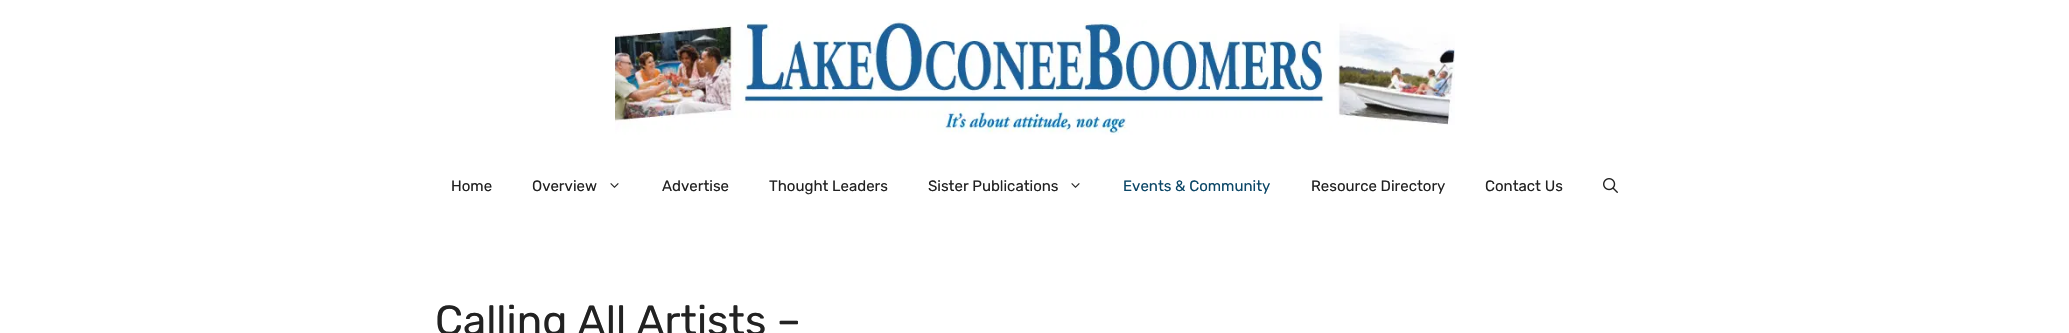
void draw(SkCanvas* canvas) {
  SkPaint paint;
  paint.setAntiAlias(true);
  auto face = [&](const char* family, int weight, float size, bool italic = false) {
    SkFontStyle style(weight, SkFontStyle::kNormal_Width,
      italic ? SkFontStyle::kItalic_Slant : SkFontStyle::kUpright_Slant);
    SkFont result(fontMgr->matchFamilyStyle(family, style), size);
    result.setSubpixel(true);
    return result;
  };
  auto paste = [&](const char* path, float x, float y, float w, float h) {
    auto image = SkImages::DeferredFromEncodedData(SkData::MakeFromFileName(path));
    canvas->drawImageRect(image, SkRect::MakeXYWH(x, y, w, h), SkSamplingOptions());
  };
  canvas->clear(0xffffffff);
  paste("img/1.png", 615, 20, 840, 115);
  paste("img/2.png", 610, 183, 9, 5);
  paste("img/2.png", 1071, 183, 9, 5);
  paste("img/3.png", 1603, 178, 15, 15);
  auto f0 = face("Rubik", 300, 15);
  paint.setColor(0xff222222);
  {
    const struct { const char* s; float x, y; } items[] = {
      {"Home", 451, 191},
      {"Overview", 532, 191},
      {"Advertise", 662, 191},
      {"Thought Leaders", 769, 191},
      {"Sister Publications", 928, 191},
    };
    for (auto [s, x, y] : items) {
      canvas->drawString(s, x, y, f0, paint);
    }
  }
  paint.setColor(0xff0c4767);
  canvas->drawString("Events & Community", 1123, 191, f0, paint);
  paint.setColor(0xff222222);
  canvas->drawString("Resource Directory", 1311, 191, f0, paint);
  canvas->drawString("Contact Us", 1485, 191, f0, paint);
  auto f1 = face("Rubik", 300, 42);
  canvas->drawString("Calling All Artists –", 435, 335, f1, paint);
}
